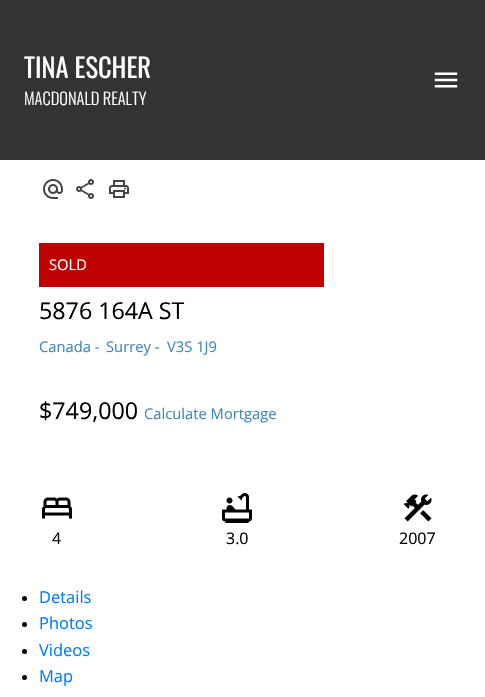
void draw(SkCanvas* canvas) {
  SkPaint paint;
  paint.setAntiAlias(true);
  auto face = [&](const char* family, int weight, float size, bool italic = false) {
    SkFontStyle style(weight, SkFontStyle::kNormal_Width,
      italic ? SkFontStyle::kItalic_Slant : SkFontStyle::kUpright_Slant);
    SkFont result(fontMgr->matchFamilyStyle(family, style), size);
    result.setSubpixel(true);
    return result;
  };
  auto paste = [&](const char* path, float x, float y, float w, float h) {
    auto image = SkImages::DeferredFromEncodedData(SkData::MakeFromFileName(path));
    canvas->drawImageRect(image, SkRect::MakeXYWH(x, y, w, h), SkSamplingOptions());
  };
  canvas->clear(0xffffffff);
  paint.setColor(0xff333333);
  canvas->drawRect(SkRect::MakeXYWH(0, 0, 485, 160), paint);
  paste("img/1.png", 434, 72, 24, 16);
  paste("img/2.png", 43, 179, 20, 20);
  paste("img/3.png", 76, 179, 18, 20);
  paste("img/4.png", 109, 180, 20, 18);
  paint.setColor(0xffbe0000);
  canvas->drawRect(SkRect::MakeXYWH(39, 243, 285, 44), paint);
  paste("img/5.png", 42, 497, 30, 22);
  paste("img/6.png", 222, 493, 30, 30);
  paste("img/7.png", 403, 494, 29, 28);
  paint.setColor(0xff000000);
  canvas->drawCircle(24.5f, 598.5f, 2.5f, paint);
  canvas->drawCircle(24.5f, 624.5f, 2.5f, paint);
  canvas->drawCircle(24.5f, 651.5f, 2.5f, paint);
  canvas->drawCircle(24.5f, 677.5f, 2.5f, paint);
  auto f0 = face("Oswald", 400, 26.5f);
  paint.setColor(0xffffffff);
  canvas->drawString("TINA ESCHER", 24, 78, f0, paint);
  auto f1 = face("Oswald", 300, 16.5f);
  canvas->drawString("MACDONALD REALTY", 24, 105, f1, paint);
  auto f2 = face("Open Sans", 400, 14.75f);
  canvas->drawString("SOLD", 49, 270, f2, paint);
  auto f3 = face("Open Sans", 400, 23.25f);
  paint.setColor(0xff000000);
  canvas->drawString("5876 164A ST", 39, 319, f3, paint);
  paint.setColor(0xff4086b9);
  {
    const struct { const char* s; float x, y; } items[] = {
      {"Canada -", 39, 352},
      {"Surrey -", 106, 352},
      {"V3S 1J9", 167, 352},
    };
    for (auto [s, x, y] : items) {
      canvas->drawString(s, x, y, f2, paint);
    }
  }
  paint.setColor(0xff000000);
  canvas->drawString("$749,000", 39, 419, f3, paint);
  paint.setColor(0xff4086b9);
  canvas->drawString("Calculate Mortgage", 144, 419, f2, paint);
  auto f4 = face("Open Sans", 400, 16);
  paint.setColor(0xff000000);
  {
    const struct { const char* s; float x, y; } items[] = {
      {"4", 52, 544},
      {"3.0", 226, 544},
      {"2007", 399, 544},
    };
    for (auto [s, x, y] : items) {
      canvas->drawString(s, x, y, f4, paint);
    }
  }
  auto f5 = face("Open Sans", 400, 16.5f);
  paint.setColor(0xff007bff);
  {
    const struct { const char* s; float x, y; } items[] = {
      {"Details", 39, 603},
      {"Photos", 39, 629},
      {"Videos", 39, 656},
      {"Map", 39, 682},
    };
    for (auto [s, x, y] : items) {
      canvas->drawString(s, x, y, f5, paint);
    }
  }
}
